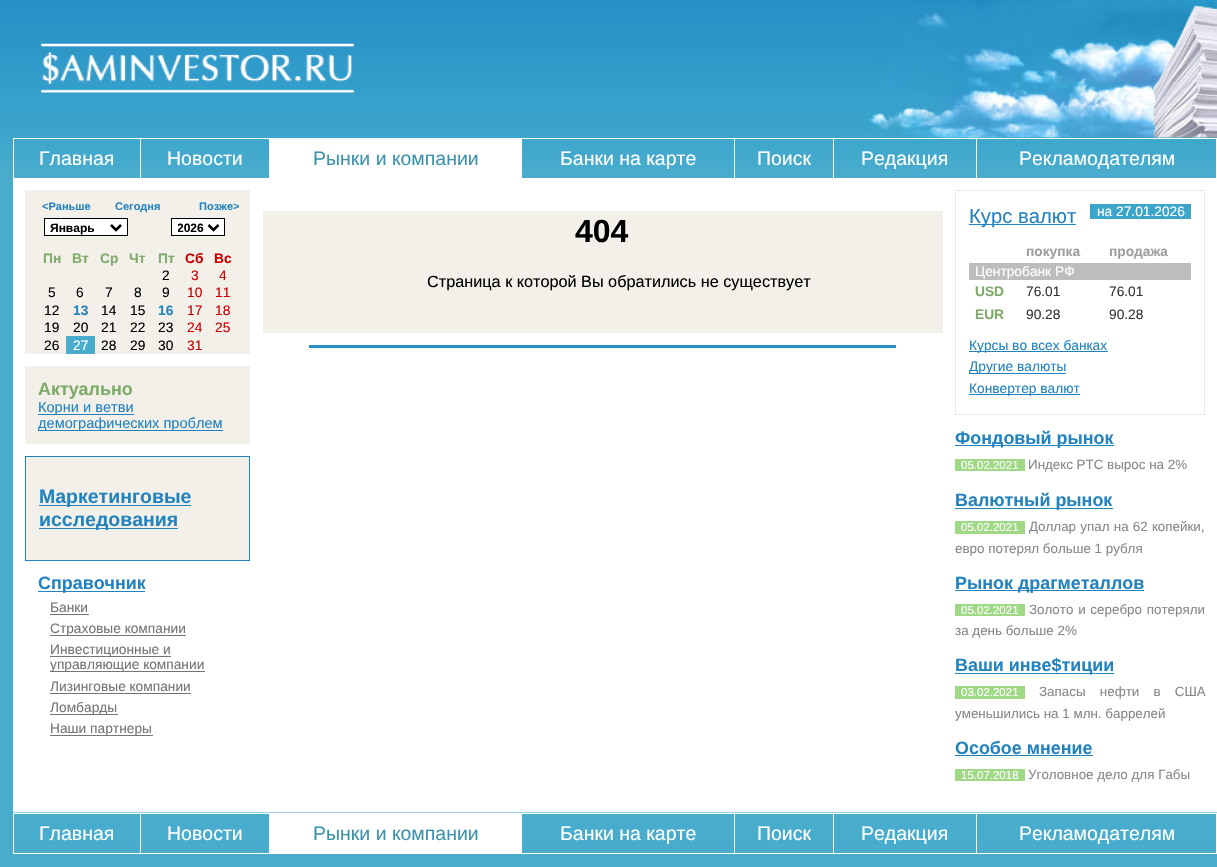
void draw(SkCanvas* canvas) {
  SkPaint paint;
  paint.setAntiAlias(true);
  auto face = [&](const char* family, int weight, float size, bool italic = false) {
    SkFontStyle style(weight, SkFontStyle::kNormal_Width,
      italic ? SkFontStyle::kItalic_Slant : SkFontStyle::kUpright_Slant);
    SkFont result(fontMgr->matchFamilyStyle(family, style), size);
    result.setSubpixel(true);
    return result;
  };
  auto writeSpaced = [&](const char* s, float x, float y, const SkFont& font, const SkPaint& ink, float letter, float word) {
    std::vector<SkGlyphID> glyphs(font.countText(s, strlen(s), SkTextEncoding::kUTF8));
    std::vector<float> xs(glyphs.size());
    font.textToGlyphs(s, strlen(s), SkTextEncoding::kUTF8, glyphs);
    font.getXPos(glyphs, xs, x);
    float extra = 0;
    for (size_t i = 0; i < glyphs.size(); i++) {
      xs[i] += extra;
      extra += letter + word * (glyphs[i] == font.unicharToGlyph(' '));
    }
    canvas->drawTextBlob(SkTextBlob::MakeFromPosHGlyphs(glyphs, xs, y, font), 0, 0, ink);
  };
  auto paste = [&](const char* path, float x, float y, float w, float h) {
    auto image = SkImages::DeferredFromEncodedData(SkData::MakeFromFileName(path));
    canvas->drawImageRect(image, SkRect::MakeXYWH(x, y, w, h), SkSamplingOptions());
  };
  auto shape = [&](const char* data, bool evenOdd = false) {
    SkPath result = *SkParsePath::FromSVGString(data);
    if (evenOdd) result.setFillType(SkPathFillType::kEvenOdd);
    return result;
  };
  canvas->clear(0xff48accc);
  paste("img/1.png", 0, 0, 868, 138);
  paste("img/2.png", 41, 43, 313, 50);
  paste("img/3.png", 868, 0, 349, 138);
  paste("img/4.png", 0, 137, 1217, 42);
  {
    const struct { float x, y, w, h; SkColor color; } items[] = {
      {13, 138, 1204, 1, 0xffffffff},
      {1216, 138, 1, 41, 0xffffffff},
      {13, 178, 1204, 1, 0xffffffff},
      {13, 139, 1, 39, 0xffffffff},
      {140, 139, 1, 39, 0xffffffff},
      {269, 139, 253, 39, 0xffffffff},
      {734, 139, 1, 39, 0xffffffff},
      {833, 139, 1, 39, 0xffffffff},
      {976, 139, 1, 39, 0xffffffff},
      {13, 179, 1204, 634, 0xffffffff},
      {25, 190, 225, 164, 0xfff3f0e9},
    };
    for (auto [x, y, w, h, color] : items) {
      paint.setColor(color);
      canvas->drawRect(SkRect::MakeXYWH(x, y, w, h), paint);
    }
  }
  paint.setColor(0xffffffff);
  canvas->drawRect(SkRect::MakeXYWH(44.5f, 218.5f, 83, 17), paint);
  paint.setStroke(true);
  paint.setStrokeWidth(1);
  paint.setColor(0xff000000);
  canvas->drawRect(SkRect::MakeXYWH(44.5f, 218.5f, 83, 17), paint);
  paint.setStrokeWidth(2.5f);
  canvas->drawPath(shape("M111 225L116 230L121 225"), paint);
  paint.setStroke(false);
  paint.setColor(0xffffffff);
  canvas->drawRect(SkRect::MakeXYWH(171.5f, 218.5f, 53, 17), paint);
  paint.setStroke(true);
  paint.setStrokeWidth(1);
  paint.setColor(0xff000000);
  canvas->drawRect(SkRect::MakeXYWH(171.5f, 218.5f, 53, 17), paint);
  paint.setStrokeWidth(2.5f);
  canvas->drawPath(shape("M208.5 225L213.5 230L218.5 225"), paint);
  paint.setStroke(false);
  {
    const struct { float x, y, w, h; SkColor color; } items[] = {
      {66, 336, 29, 18, 0xff49accc},
      {25, 366, 225, 78, 0xfff3f0e9},
      {38, 414, 96, 1, 0xff2383bf},
      {38, 430, 185, 1, 0xff2383bf},
    };
    for (auto [x, y, w, h, color] : items) {
      paint.setColor(color);
      canvas->drawRect(SkRect::MakeXYWH(x, y, w, h), paint);
    }
  }
  paint.setColor(0xfff3f0e9);
  canvas->drawRect(SkRect::MakeXYWH(25.5f, 456.5f, 224, 104), paint);
  paint.setStroke(true);
  paint.setStrokeWidth(1);
  paint.setColor(0xff2383bf);
  canvas->drawRect(SkRect::MakeXYWH(25.5f, 456.5f, 224, 104), paint);
  paint.setStroke(false);
  {
    const struct { float x, y, w, h; SkColor color; } items[] = {
      {39, 505, 152, 1, 0xff2383bf},
      {39, 528, 139, 1, 0xff2383bf},
      {38, 591, 107, 1, 0xff2383bf},
      {50, 614, 39, 1, 0xff757575},
      {50, 635, 136, 1, 0xff757575},
      {50, 656, 121, 1, 0xff757575},
      {50, 671, 155, 1, 0xff757575},
      {50, 693, 141, 1, 0xff757575},
      {50, 714, 68, 1, 0xff757575},
      {50, 735, 103, 1, 0xff757575},
      {263, 211, 680, 122, 0xfff3f0e9},
      {309, 345, 587, 3, 0xff2791c5},
    };
    for (auto [x, y, w, h, color] : items) {
      paint.setColor(color);
      canvas->drawRect(SkRect::MakeXYWH(x, y, w, h), paint);
    }
  }
  paint.setStroke(true);
  paint.setColor(0xffeaeaea);
  canvas->drawRect(SkRect::MakeXYWH(955.5f, 190.5f, 249, 224), paint);
  paint.setStroke(false);
  {
    const struct { float x, y, w, h; SkColor color; } items[] = {
      {969, 224, 107, 1, 0xff2383bf},
      {1090, 204, 101, 15, 0xff3ba6ca},
      {969, 263, 222, 17, 0xffbdbdbd},
      {969, 351, 139, 1, 0xff2383bf},
      {969, 373, 97, 1, 0xff2383bf},
      {969, 394, 111, 1, 0xff2383bf},
      {955, 445, 159, 1, 0xff2383bf},
      {955, 459, 70, 12, 0xff9fd985},
      {955, 508, 158, 1, 0xff2383bf},
      {955, 521, 70, 13, 0xff9fd985},
      {955, 590, 189, 1, 0xff2383bf},
      {955, 604, 70, 12, 0xff9fd985},
      {955, 673, 159, 1, 0xff2383bf},
      {955, 686, 70, 13, 0xff9fd985},
      {955, 755, 138, 1, 0xff2383bf},
      {955, 769, 70, 12, 0xff9fd985},
    };
    for (auto [x, y, w, h, color] : items) {
      paint.setColor(color);
      canvas->drawRect(SkRect::MakeXYWH(x, y, w, h), paint);
    }
  }
  paste("img/5.png", 12, 812, 1205, 42);
  {
    const struct { float x, y, w, h; SkColor color; } items[] = {
      {13, 813, 1204, 1, 0xffffffff},
      {1216, 813, 1, 41, 0xffffffff},
      {13, 853, 1204, 1, 0xffffffff},
      {14, 814, 126, 27, 0xff48accc},
      {13, 814, 1, 39, 0xffffffff},
      {141, 814, 128, 27, 0xff48accc},
      {140, 814, 1, 39, 0xffffffff},
      {269, 814, 253, 39, 0xffffffff},
      {522, 814, 212, 27, 0xff48accc},
      {735, 814, 98, 27, 0xff48accc},
      {734, 814, 1, 39, 0xffffffff},
      {834, 814, 142, 27, 0xff48accc},
      {833, 814, 1, 39, 0xffffffff},
      {977, 814, 239, 27, 0xff48accc},
      {976, 814, 1, 39, 0xffffffff},
    };
    for (auto [x, y, w, h, color] : items) {
      paint.setColor(color);
      canvas->drawRect(SkRect::MakeXYWH(x, y, w, h), paint);
    }
  }
  auto f0 = face("Liberation Sans", 400, 19.5f);
  canvas->drawString("Главная", 39, 165, f0, paint);
  canvas->drawString("Новости", 167, 165, f0, paint);
  paint.setColor(0xff3d92ad);
  canvas->drawString("Рынки и компании", 313, 165, f0, paint);
  paint.setColor(0xffffffff);
  {
    const struct { const char* s; float x, y; } items[] = {
      {"Банки на карте", 560, 165},
      {"Поиск", 757, 165},
      {"Редакция", 861, 165},
      {"Рекламодателям", 1019, 165},
    };
    for (auto [s, x, y] : items) {
      canvas->drawString(s, x, y, f0, paint);
    }
  }
  auto f1 = face("Liberation Sans", 700, 11);
  paint.setColor(0xff2383bf);
  {
    const struct { const char* s; float x, y; } items[] = {
      {"<Раньше", 42, 210},
      {"Сегодня", 115, 210},
      {"Позже>", 199, 210},
    };
    for (auto [s, x, y] : items) {
      canvas->drawString(s, x, y, f1, paint);
    }
  }
  auto f2 = face("Liberation Sans", 700, 12);
  paint.setColor(0xff000000);
  canvas->drawString("Январь", 50, 232, f2, paint);
  canvas->save();
  canvas->clipRect(SkRect::MakeXYWH(178, 219, 26, 16));
  canvas->drawString("2026", 177, 232, f2, paint);
  canvas->restore();
  auto f3 = face("Liberation Sans", 700, 13.75f);
  paint.setColor(0xff7eab6a);
  {
    const struct { const char* s; float x, y; } items[] = {
      {"Пн", 43, 263},
      {"Вт", 72, 263},
      {"Ср", 100, 263},
      {"Чт", 129, 263},
      {"Пт", 158, 263},
    };
    for (auto [s, x, y] : items) {
      canvas->drawString(s, x, y, f3, paint);
    }
  }
  paint.setColor(0xffcc0000);
  canvas->drawString("Сб", 185, 263, f3, paint);
  canvas->drawString("Вс", 214, 263, f3, paint);
  auto f4 = face("Liberation Sans", 400, 13.75f);
  paint.setColor(0xff000000);
  canvas->drawString("2", 162, 280, f4, paint);
  paint.setColor(0xffcc0000);
  canvas->drawString("3", 191, 280, f4, paint);
  canvas->drawString("4", 219, 280, f4, paint);
  paint.setColor(0xff000000);
  {
    const struct { const char* s; float x, y; } items[] = {
      {"5", 48, 297},
      {"6", 76, 297},
      {"7", 105, 297},
      {"8", 134, 297},
      {"9", 162, 297},
    };
    for (auto [s, x, y] : items) {
      canvas->drawString(s, x, y, f4, paint);
    }
  }
  paint.setColor(0xffcc0000);
  canvas->drawString("10", 187, 297, f4, paint);
  canvas->drawString("11", 215, 297, f4, paint);
  paint.setColor(0xff000000);
  canvas->drawString("12", 44, 315, f4, paint);
  paint.setColor(0xff2383bf);
  canvas->drawString("13", 73, 315, f3, paint);
  paint.setColor(0xff000000);
  canvas->drawString("14", 101, 315, f4, paint);
  canvas->drawString("15", 130, 315, f4, paint);
  paint.setColor(0xff2383bf);
  canvas->drawString("16", 158, 315, f3, paint);
  paint.setColor(0xffcc0000);
  canvas->drawString("17", 187, 315, f4, paint);
  canvas->drawString("18", 215, 315, f4, paint);
  paint.setColor(0xff000000);
  {
    const struct { const char* s; float x, y; } items[] = {
      {"19", 44, 332},
      {"20", 73, 332},
      {"21", 101, 332},
      {"22", 130, 332},
      {"23", 158, 332},
    };
    for (auto [s, x, y] : items) {
      canvas->drawString(s, x, y, f4, paint);
    }
  }
  paint.setColor(0xffcc0000);
  canvas->drawString("24", 187, 332, f4, paint);
  canvas->drawString("25", 215, 332, f4, paint);
  paint.setColor(0xff000000);
  canvas->drawString("26", 44, 350, f4, paint);
  paint.setColor(0xffffffff);
  canvas->drawString("27", 73, 350, f4, paint);
  paint.setColor(0xff000000);
  {
    const struct { const char* s; float x, y; } items[] = {
      {"28", 101, 350},
      {"29", 130, 350},
      {"30", 158, 350},
    };
    for (auto [s, x, y] : items) {
      canvas->drawString(s, x, y, f4, paint);
    }
  }
  paint.setColor(0xffcc0000);
  canvas->drawString("31", 187, 350, f4, paint);
  auto f5 = face("Liberation Sans", 700, 17.9f);
  paint.setColor(0xff7eab6a);
  canvas->drawString("Актуально", 38, 395, f5, paint);
  auto f6 = face("Liberation Sans", 400, 14.6f);
  paint.setColor(0xff2383bf);
  canvas->drawString("Корни и ветви", 38, 412, f6, paint);
  canvas->drawString("демографических проблем", 38, 428, f6, paint);
  auto f7 = face("Liberation Sans", 700, 19.5f);
  canvas->drawString("Маркетинговые", 39, 503, f7, paint);
  canvas->drawString("исследования", 39, 526, f7, paint);
  canvas->drawString("Справочник", 38, 589, f5, paint);
  paint.setColor(0xff757575);
  {
    const struct { const char* s; float x, y; } items[] = {
      {"Банки", 50, 612},
      {"Страховые компании", 50, 633},
      {"Инвестиционные и", 50, 654},
      {"управляющие компании", 50, 669},
      {"Лизинговые компании", 50, 691},
      {"Ломбарды", 50, 712},
      {"Наши партнеры", 50, 733},
    };
    for (auto [s, x, y] : items) {
      canvas->drawString(s, x, y, f4, paint);
    }
  }
  auto f8 = face("Liberation Sans", 700, 32);
  paint.setColor(0xff000000);
  canvas->drawString("404", 575, 242, f8, paint);
  auto f9 = face("Liberation Sans", 400, 16.25f);
  canvas->drawString("Страница к которой Вы обратились не существует", 427, 287, f9, paint);
  auto f10 = face("Liberation Sans", 400, 20.25f);
  paint.setColor(0xff2383bf);
  canvas->drawString("Курс валют", 969, 223, f10, paint);
  paint.setColor(0xffffffff);
  canvas->drawString("на 27.01.2026", 1097, 216, f4, paint);
  paint.setColor(0xff9e9e9e);
  canvas->drawString("покупка", 1026, 256, f3, paint);
  canvas->drawString("продажа", 1109, 256, f3, paint);
  paint.setColor(0xffffffff);
  canvas->drawString("Центробанк РФ", 975, 276, f4, paint);
  paint.setColor(0xff7eab6a);
  canvas->drawString("USD", 975, 296, f3, paint);
  paint.setColor(0xff353535);
  canvas->drawString("76.01", 1026, 296, f4, paint);
  canvas->drawString("76.01", 1109, 296, f4, paint);
  paint.setColor(0xff7eab6a);
  canvas->drawString("EUR", 975, 319, f3, paint);
  paint.setColor(0xff353535);
  canvas->drawString("90.28", 1026, 319, f4, paint);
  canvas->drawString("90.28", 1109, 319, f4, paint);
  paint.setColor(0xff2383bf);
  {
    const struct { const char* s; float x, y; } items[] = {
      {"Курсы во всех банках", 969, 350},
      {"Другие валюты", 969, 371},
      {"Конвертер валют", 969, 393},
    };
    for (auto [s, x, y] : items) {
      canvas->drawString(s, x, y, f4, paint);
    }
  }
  canvas->drawString("Фондовый рынок", 955, 444, f5, paint);
  auto f11 = face("Liberation Sans", 400, 11.5f);
  paint.setColor(0xffffffff);
  canvas->drawString("05.02.2021", 961, 469, f11, paint);
  auto f12 = face("Liberation Sans", 400, 13.4f);
  paint.setColor(0xff888888);
  canvas->drawString("Индекс РТС вырос на 2%", 1028, 469, f12, paint);
  paint.setColor(0xff2383bf);
  canvas->drawString("Валютный рынок", 955, 506, f5, paint);
  paint.setColor(0xffffffff);
  canvas->drawString("05.02.2021", 961, 531, f11, paint);
  paint.setColor(0xff888888);
  writeSpaced("Доллар упал на 62 копейки,", 1029, 531, f12, paint, 0, 0.5f);
  canvas->drawString("евро потерял больше 1 рубля", 955, 553, f12, paint);
  paint.setColor(0xff2383bf);
  canvas->drawString("Рынок драгметаллов", 955, 589, f5, paint);
  paint.setColor(0xffffffff);
  canvas->drawString("05.02.2021", 961, 614, f11, paint);
  paint.setColor(0xff888888);
  writeSpaced("Золото и серебро потеряли", 1029, 614, f12, paint, 0, 1);
  canvas->drawString("за день больше 2%", 955, 635, f12, paint);
  paint.setColor(0xff2383bf);
  canvas->drawString("Ваши инве$тиции", 955, 671, f5, paint);
  paint.setColor(0xffffffff);
  canvas->drawString("03.02.2021", 961, 696, f11, paint);
  paint.setColor(0xff888888);
  writeSpaced("Запасы нефти в США", 1039, 696, f12, paint, 0, 10.5f);
  canvas->drawString("уменьшились на 1 млн. баррелей", 955, 718, f12, paint);
  paint.setColor(0xff2383bf);
  canvas->drawString("Особое мнение", 955, 754, f5, paint);
  paint.setColor(0xffffffff);
  canvas->drawString("15.07.2018", 961, 779, f11, paint);
  paint.setColor(0xff888888);
  canvas->drawString("Уголовное дело для Габы", 1028, 779, f12, paint);
  paint.setColor(0xffffffff);
  canvas->drawString("Главная", 39, 840, f0, paint);
  canvas->drawString("Новости", 167, 840, f0, paint);
  paint.setColor(0xff3d92ad);
  canvas->drawString("Рынки и компании", 313, 840, f0, paint);
  paint.setColor(0xffffffff);
  {
    const struct { const char* s; float x, y; } items[] = {
      {"Банки на карте", 560, 840},
      {"Поиск", 757, 840},
      {"Редакция", 861, 840},
      {"Рекламодателям", 1019, 840},
    };
    for (auto [s, x, y] : items) {
      canvas->drawString(s, x, y, f0, paint);
    }
  }
}
